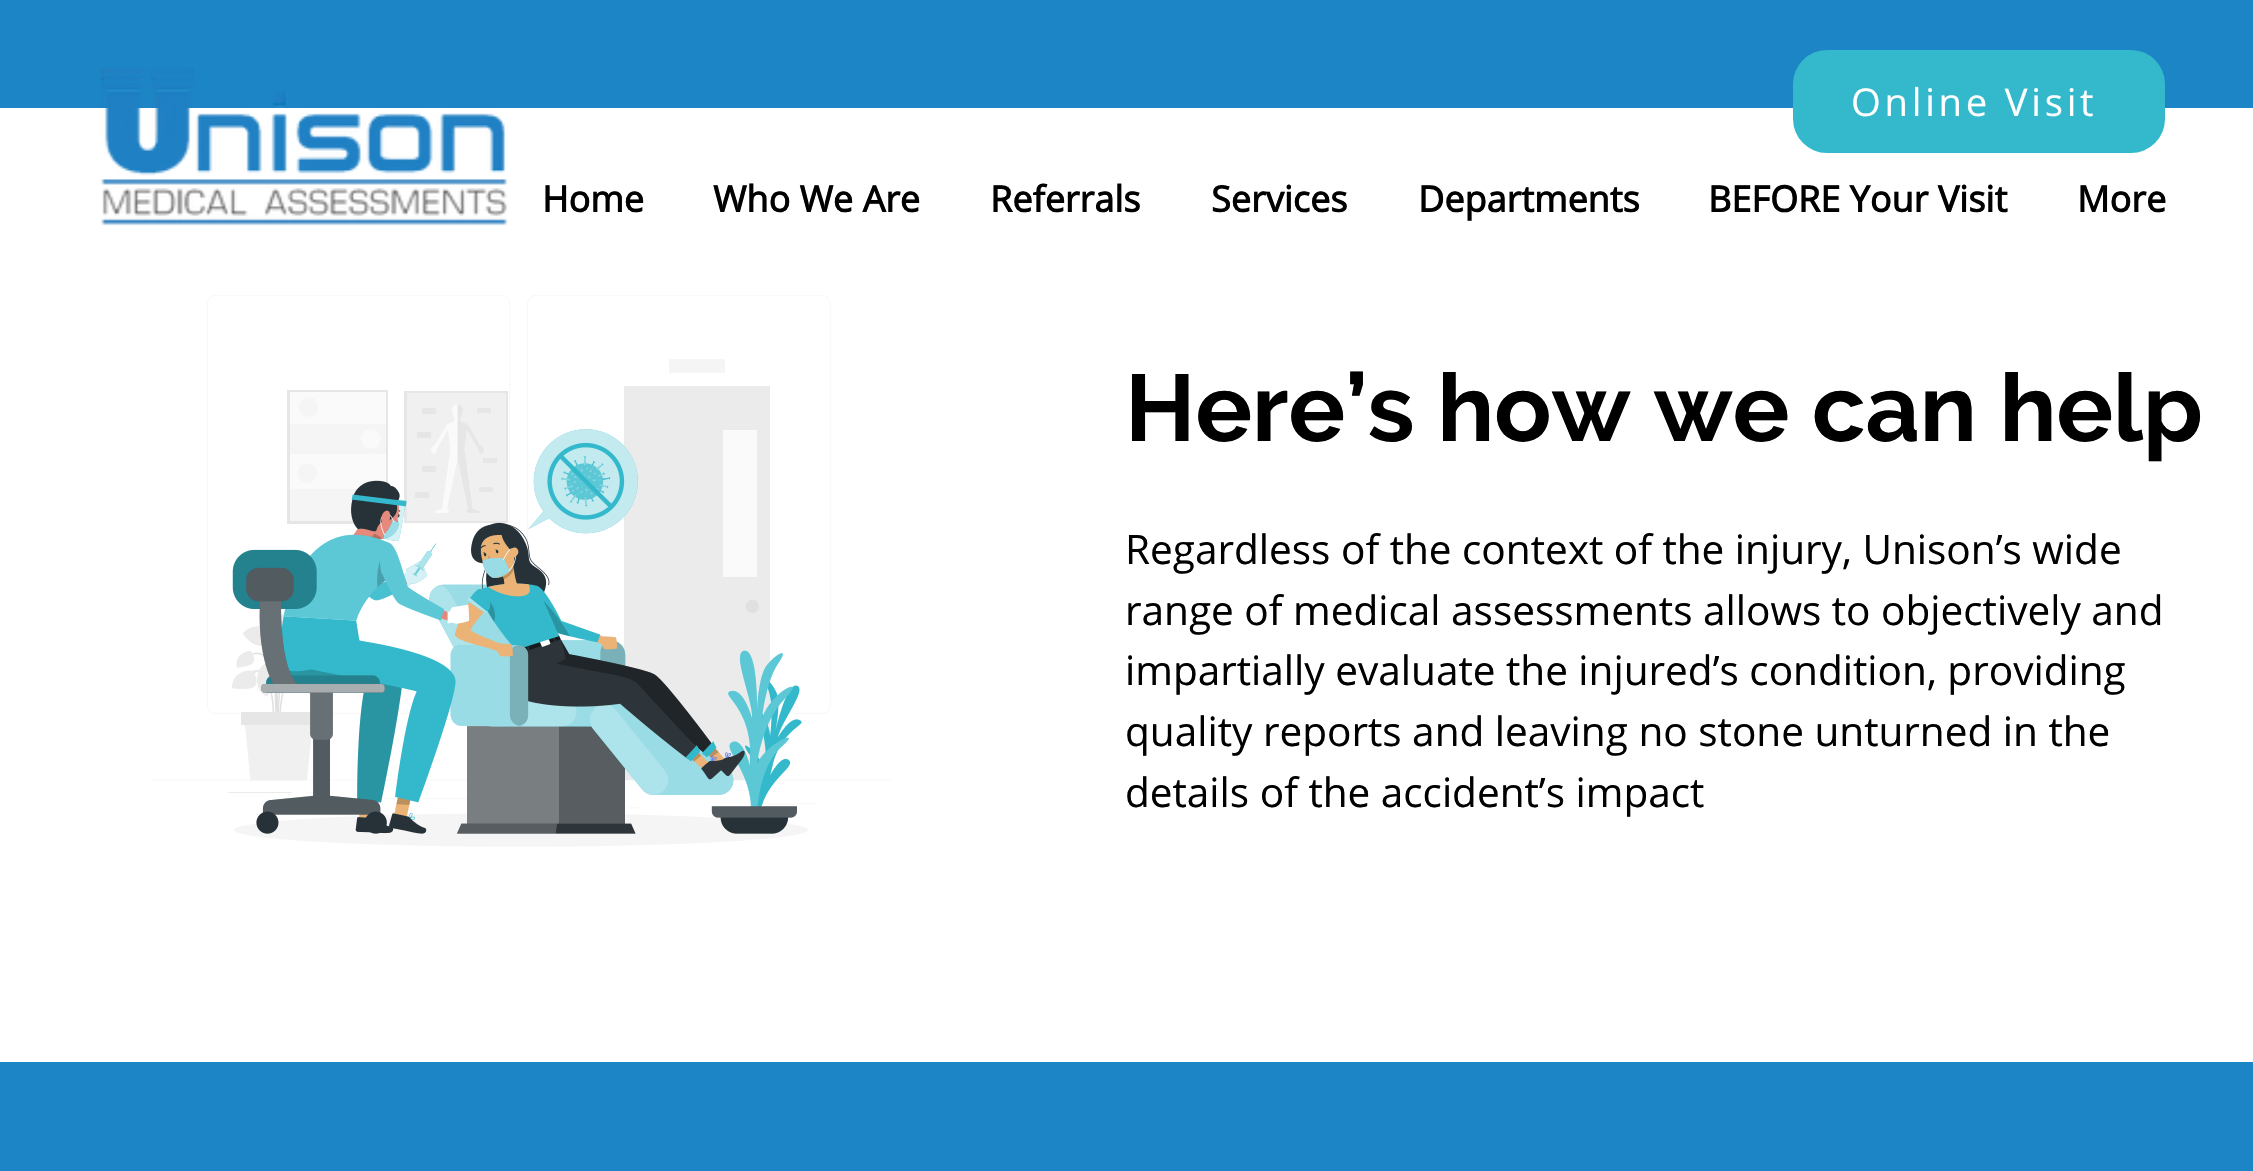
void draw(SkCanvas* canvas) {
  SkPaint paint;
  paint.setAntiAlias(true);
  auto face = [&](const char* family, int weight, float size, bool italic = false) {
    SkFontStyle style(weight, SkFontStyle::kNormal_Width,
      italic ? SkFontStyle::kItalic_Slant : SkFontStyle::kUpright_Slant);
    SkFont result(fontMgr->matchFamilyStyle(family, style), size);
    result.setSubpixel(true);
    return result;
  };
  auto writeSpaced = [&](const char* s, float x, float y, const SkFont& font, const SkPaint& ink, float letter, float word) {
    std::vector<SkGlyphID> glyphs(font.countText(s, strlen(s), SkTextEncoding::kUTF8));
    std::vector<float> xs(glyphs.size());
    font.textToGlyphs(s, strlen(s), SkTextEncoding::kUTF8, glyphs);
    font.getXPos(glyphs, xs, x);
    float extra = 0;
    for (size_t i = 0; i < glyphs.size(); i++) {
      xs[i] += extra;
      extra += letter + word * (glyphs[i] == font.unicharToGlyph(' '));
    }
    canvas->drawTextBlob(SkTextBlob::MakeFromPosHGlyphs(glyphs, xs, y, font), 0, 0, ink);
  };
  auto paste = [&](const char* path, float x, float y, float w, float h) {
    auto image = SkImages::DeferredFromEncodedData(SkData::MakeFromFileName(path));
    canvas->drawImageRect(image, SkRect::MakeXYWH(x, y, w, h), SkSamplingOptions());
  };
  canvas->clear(0xffffffff);
  paint.setColor(0xff1c85c5);
  canvas->drawRect(SkRect::MakeXYWH(0, 0, 2253, 108), paint);
  paste("img/1.png", 100, 68, 408, 158);
  paint.setColor(0xff33b9cb);
  canvas->drawRoundRect(SkRect::MakeXYWH(1793, 50, 372, 103), 34, 34, paint);
  paste("img/2.png", 151, 295, 740, 552);
  paint.setColor(0xff1c85c5);
  canvas->drawRect(SkRect::MakeXYWH(0, 1062, 2253, 109), paint);
  auto f0 = face("Open Sans", 400, 38.25f);
  paint.setColor(0xffffffff);
  writeSpaced("Online Visit", 1851, 116, f0, paint, 3.75f, 0);
  auto f1 = face("Open Sans", 700, 36);
  paint.setColor(0xff000000);
  {
    const struct { const char* s; float x, y; } items[] = {
      {"Home", 542, 212},
      {"Who We Are", 713, 212},
      {"Referrals", 990, 212},
      {"Services", 1211, 212},
      {"Departments", 1418, 212},
      {"BEFORE Your Visit", 1708, 212},
      {"More", 2077, 212},
    };
    for (auto [s, x, y] : items) {
      canvas->drawString(s, x, y, f1, paint);
    }
  }
  auto f2 = face("Raleway", 700, 94.5f);
  canvas->drawString("Here’s how we can help", 1125, 441, f2, paint);
  auto f3 = face("Open Sans", 400, 40.5f);
  {
    const struct { const char* s; float x, y; } items[] = {
      {"Regardless of the context of the injury, Unison’s wide", 1125, 564},
      {"range of medical assessments allows to objectively and", 1125, 625},
      {"impartially evaluate the injured’s condition, providing", 1125, 685},
      {"quality reports and leaving no stone unturned in the", 1125, 746},
      {"details of the accident’s impact", 1125, 807},
    };
    for (auto [s, x, y] : items) {
      canvas->drawString(s, x, y, f3, paint);
    }
  }
}
